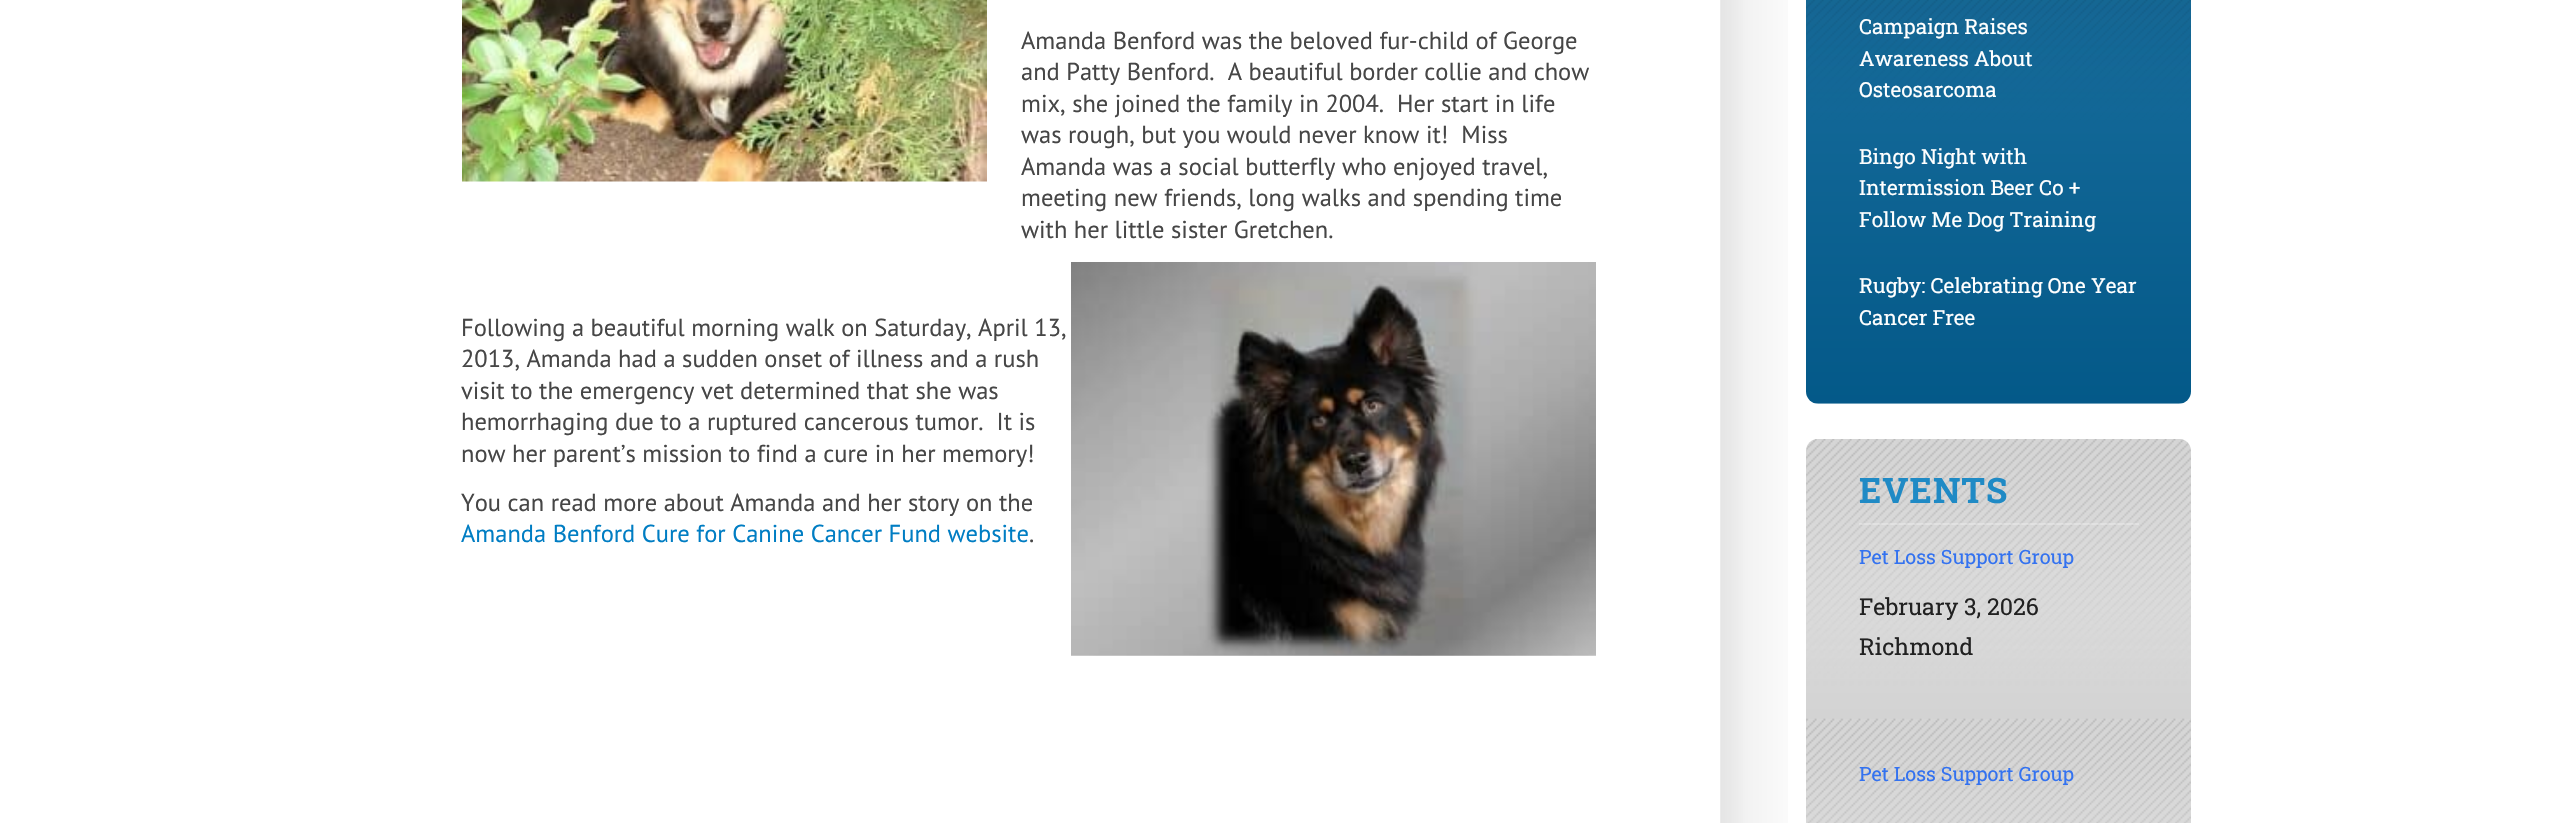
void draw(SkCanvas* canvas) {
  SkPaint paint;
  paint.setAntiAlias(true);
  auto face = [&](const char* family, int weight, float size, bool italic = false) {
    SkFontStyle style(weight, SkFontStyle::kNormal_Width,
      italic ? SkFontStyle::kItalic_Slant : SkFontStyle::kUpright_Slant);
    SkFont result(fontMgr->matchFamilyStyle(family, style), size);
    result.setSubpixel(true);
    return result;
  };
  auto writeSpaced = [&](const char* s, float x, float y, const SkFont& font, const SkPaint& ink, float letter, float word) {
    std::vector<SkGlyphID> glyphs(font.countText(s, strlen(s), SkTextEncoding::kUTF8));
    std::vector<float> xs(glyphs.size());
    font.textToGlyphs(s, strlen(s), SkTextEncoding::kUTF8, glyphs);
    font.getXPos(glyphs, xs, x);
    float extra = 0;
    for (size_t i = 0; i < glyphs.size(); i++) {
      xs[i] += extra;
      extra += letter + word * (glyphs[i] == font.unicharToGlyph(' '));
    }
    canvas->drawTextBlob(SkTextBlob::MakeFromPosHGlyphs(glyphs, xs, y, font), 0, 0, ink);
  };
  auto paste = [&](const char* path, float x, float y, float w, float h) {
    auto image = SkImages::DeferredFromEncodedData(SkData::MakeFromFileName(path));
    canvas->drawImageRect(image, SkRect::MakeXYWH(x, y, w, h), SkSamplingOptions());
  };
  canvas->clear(0xffffffff);
  paste("img/1.png", 462, 0, 525, 182);
  paste("img/2.png", 1071, 262, 525, 394);
  paste("img/3.png", 1720, 0, 68, 823);
  paste("img/4.png", 1806, 0, 385, 404);
  paste("img/5.png", 1806, 439, 385, 384);
  paint.setColor(0x42ffffff);
  canvas->drawRect(SkRect::MakeXYWH(1859, 523, 280, 2), paint);
  auto f0 = face("PT Sans", 400, 24.5f);
  paint.setColor(0xff464646);
  {
    const struct { const char* s; float x, y; } items[] = {
      {"Amanda Benford was the beloved fur-child of George", 1021, 49},
      {"and Patty Benford.  A beautiful border collie and chow", 1021, 80},
      {"mix, she joined the family in 2004.  Her start in life", 1021, 112},
      {"was rough, but you would never know it!  Miss", 1021, 143},
      {"Amanda was a social butterfly who enjoyed travel,", 1021, 175},
      {"meeting new friends, long walks and spending time", 1021, 206},
      {"with her little sister Gretchen.", 1021, 238},
      {"Following a beautiful morning walk on Saturday, April 13,", 461, 336},
      {"2013, Amanda had a sudden onset of illness and a rush", 461, 367},
      {"visit to the emergency vet determined that she was", 461, 399},
      {"hemorrhaging due to a ruptured cancerous tumor.  It is", 461, 430},
      {"now her parent’s mission to find a cure in her memory!", 461, 462},
      {"You can read more about Amanda and her story on the", 461, 511},
    };
    for (auto [s, x, y] : items) {
      canvas->drawString(s, x, y, f0, paint);
    }
  }
  paint.setColor(0xff007dc3);
  canvas->drawString("Amanda Benford Cure for Canine Cancer Fund website", 461, 542, f0, paint);
  paint.setColor(0xff464646);
  canvas->drawString(".", 1029, 542, f0, paint);
  auto f1 = face("Roboto Slab", 400, 20.75f);
  paint.setColor(0xffffffff);
  {
    const struct { const char* s; float x, y; } items[] = {
      {"Campaign Raises", 1859, 34},
      {"Awareness About", 1859, 66},
      {"Osteosarcoma", 1859, 97},
      {"Bingo Night with", 1859, 164},
      {"Intermission Beer Co +", 1859, 195},
      {"Follow Me Dog Training", 1859, 227},
      {"Rugby: Celebrating One Year", 1859, 293},
      {"Cancer Free", 1859, 325},
    };
    for (auto [s, x, y] : items) {
      canvas->drawString(s, x, y, f1, paint);
    }
  }
  auto f2 = face("Roboto Slab", 700, 35);
  paint.setColor(0xff1f8ac5);
  writeSpaced("EVENTS", 1859, 503, f2, paint, 1, 0);
  auto f3 = face("Roboto Slab", 400, 19.75f);
  paint.setColor(0xff3372f0);
  canvas->drawString("Pet Loss Support Group", 1859, 564, f3, paint);
  auto f4 = face("Roboto Slab", 400, 23.25f);
  paint.setColor(0xff212121);
  canvas->drawString("February 3, 2026", 1859, 615, f4, paint);
  canvas->drawString("Richmond", 1859, 655, f4, paint);
  paint.setColor(0xff3372f0);
  canvas->drawString("Pet Loss Support Group", 1859, 781, f3, paint);
}
